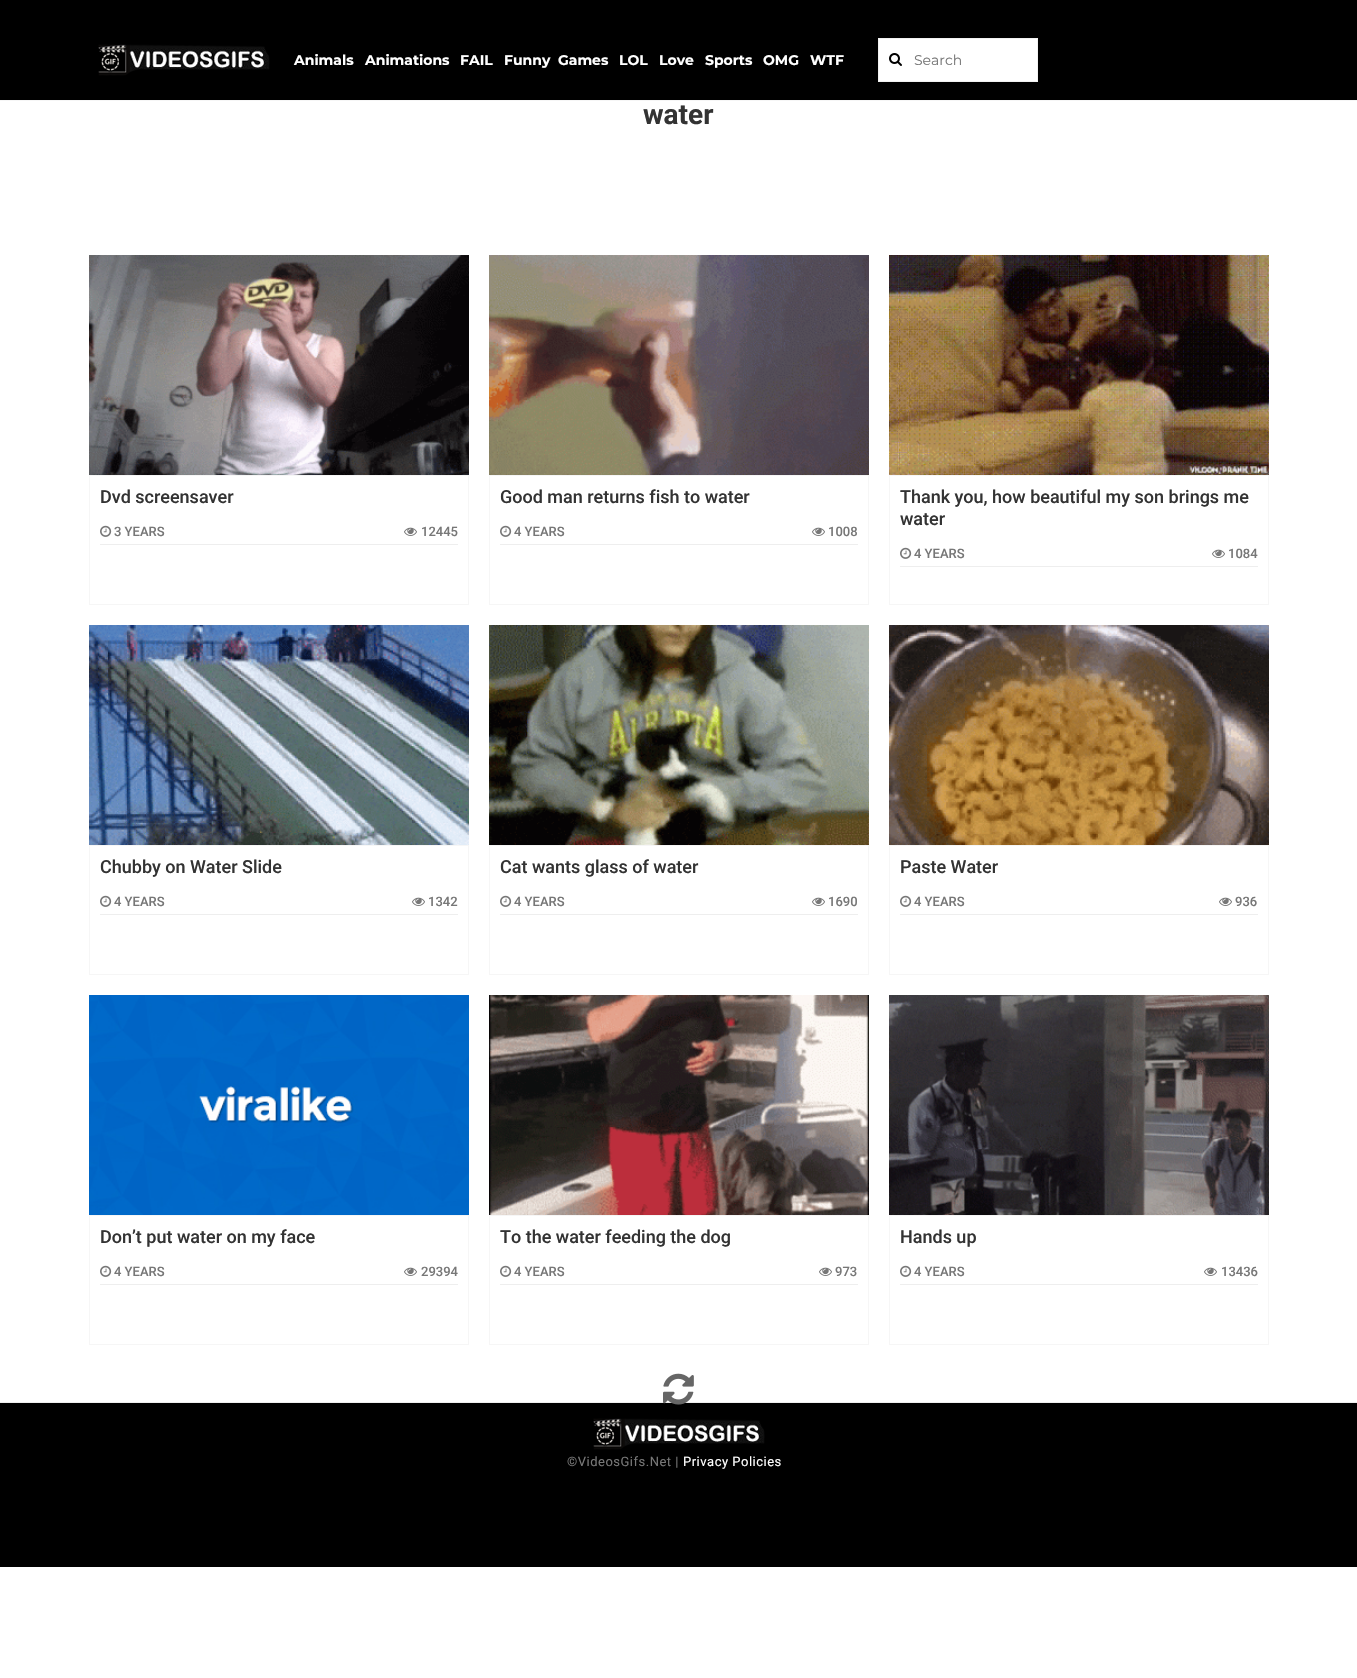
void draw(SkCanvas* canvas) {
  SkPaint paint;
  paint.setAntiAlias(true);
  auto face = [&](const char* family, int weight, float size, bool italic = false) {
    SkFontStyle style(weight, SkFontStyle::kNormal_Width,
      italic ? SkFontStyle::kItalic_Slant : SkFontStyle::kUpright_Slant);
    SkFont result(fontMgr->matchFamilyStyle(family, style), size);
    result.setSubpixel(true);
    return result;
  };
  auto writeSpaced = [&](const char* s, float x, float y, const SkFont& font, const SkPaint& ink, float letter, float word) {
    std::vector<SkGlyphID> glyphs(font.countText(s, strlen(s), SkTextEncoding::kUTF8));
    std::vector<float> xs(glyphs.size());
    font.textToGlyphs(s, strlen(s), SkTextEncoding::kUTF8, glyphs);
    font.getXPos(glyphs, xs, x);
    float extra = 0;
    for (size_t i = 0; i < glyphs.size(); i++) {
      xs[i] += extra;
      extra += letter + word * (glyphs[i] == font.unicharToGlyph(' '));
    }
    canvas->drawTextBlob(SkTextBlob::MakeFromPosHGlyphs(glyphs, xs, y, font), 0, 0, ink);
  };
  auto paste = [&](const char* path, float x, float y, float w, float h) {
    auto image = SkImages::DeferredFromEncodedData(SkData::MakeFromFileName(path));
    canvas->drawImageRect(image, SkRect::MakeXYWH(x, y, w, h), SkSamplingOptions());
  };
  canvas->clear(0xffffffff);
  paint.setColor(0xff000000);
  canvas->drawRect(SkRect::MakeXYWH(0, 0, 1357, 100), paint);
  paint.setColor(0xfff6f6f6);
  canvas->drawRect(SkRect::MakeXYWH(0, 100, 1357, 1), paint);
  paste("img/1.png", 98, 44, 172, 32);
  paint.setColor(0xffffffff);
  canvas->drawRect(SkRect::MakeXYWH(878.5f, 38.5f, 159, 43), paint);
  paint.setStroke(true);
  paint.setStrokeWidth(1);
  paint.setColor(0xfff2f2f2);
  canvas->drawRect(SkRect::MakeXYWH(878.5f, 38.5f, 159, 43), paint);
  paste("img/2.png", 889, 53, 13, 13);
  paste("img/3.png", 89, 255, 380, 220);
  paint.setColor(0xfff6f6f6);
  canvas->drawRect(SkRect::MakeXYWH(89.5f, 475.5f, 379, 129), paint);
  paint.setStroke(false);
  paint.setColor(0xffeeeeee);
  canvas->drawRect(SkRect::MakeXYWH(100, 544, 358, 1), paint);
  paste("img/4.png", 100, 525, 12, 12);
  paste("img/5.png", 404, 527, 13, 9);
  paste("img/6.png", 489, 255, 380, 220);
  paint.setStroke(true);
  paint.setColor(0xfff6f6f6);
  canvas->drawRect(SkRect::MakeXYWH(489.5f, 475.5f, 379, 129), paint);
  paint.setStroke(false);
  paint.setColor(0xffeeeeee);
  canvas->drawRect(SkRect::MakeXYWH(500, 544, 358, 1), paint);
  paste("img/4.png", 500, 525, 12, 12);
  paste("img/5.png", 812, 527, 13, 9);
  paste("img/7.png", 889, 255, 380, 220);
  paint.setStroke(true);
  paint.setColor(0xfff6f6f6);
  canvas->drawRect(SkRect::MakeXYWH(889.5f, 475.5f, 379, 129), paint);
  paint.setStroke(false);
  paint.setColor(0xffeeeeee);
  canvas->drawRect(SkRect::MakeXYWH(900, 566, 358, 1), paint);
  paste("img/4.png", 900, 547, 12, 12);
  paste("img/5.png", 1212, 549, 13, 9);
  paste("img/8.png", 89, 625, 380, 220);
  paint.setStroke(true);
  paint.setColor(0xfff6f6f6);
  canvas->drawRect(SkRect::MakeXYWH(89.5f, 845.5f, 379, 129), paint);
  paint.setStroke(false);
  paint.setColor(0xffeeeeee);
  canvas->drawRect(SkRect::MakeXYWH(100, 914, 358, 1), paint);
  paste("img/4.png", 100, 895, 12, 12);
  paste("img/5.png", 412, 897, 13, 9);
  paste("img/9.png", 489, 625, 380, 220);
  paint.setStroke(true);
  paint.setColor(0xfff6f6f6);
  canvas->drawRect(SkRect::MakeXYWH(489.5f, 845.5f, 379, 129), paint);
  paint.setStroke(false);
  paint.setColor(0xffeeeeee);
  canvas->drawRect(SkRect::MakeXYWH(500, 914, 358, 1), paint);
  paste("img/4.png", 500, 895, 12, 12);
  paste("img/5.png", 812, 897, 13, 9);
  paste("img/10.png", 889, 625, 380, 220);
  paint.setStroke(true);
  paint.setColor(0xfff6f6f6);
  canvas->drawRect(SkRect::MakeXYWH(889.5f, 845.5f, 379, 129), paint);
  paint.setStroke(false);
  paint.setColor(0xffeeeeee);
  canvas->drawRect(SkRect::MakeXYWH(900, 914, 358, 1), paint);
  paste("img/4.png", 900, 895, 12, 12);
  paste("img/5.png", 1219, 897, 13, 9);
  paste("img/11.png", 89, 995, 380, 220);
  paint.setStroke(true);
  paint.setColor(0xfff6f6f6);
  canvas->drawRect(SkRect::MakeXYWH(89.5f, 1215.5f, 379, 129), paint);
  paint.setStroke(false);
  paint.setColor(0xffeeeeee);
  canvas->drawRect(SkRect::MakeXYWH(100, 1284, 358, 1), paint);
  paste("img/4.png", 100, 1265, 12, 12);
  paste("img/5.png", 404, 1267, 13, 9);
  paste("img/12.png", 489, 995, 380, 220);
  paint.setStroke(true);
  paint.setColor(0xfff6f6f6);
  canvas->drawRect(SkRect::MakeXYWH(489.5f, 1215.5f, 379, 129), paint);
  paint.setStroke(false);
  paint.setColor(0xffeeeeee);
  canvas->drawRect(SkRect::MakeXYWH(500, 1284, 358, 1), paint);
  paste("img/4.png", 500, 1265, 12, 12);
  paste("img/5.png", 819, 1267, 13, 9);
  paste("img/13.png", 889, 995, 380, 220);
  paint.setStroke(true);
  paint.setColor(0xfff6f6f6);
  canvas->drawRect(SkRect::MakeXYWH(889.5f, 1215.5f, 379, 129), paint);
  paint.setStroke(false);
  paint.setColor(0xffeeeeee);
  canvas->drawRect(SkRect::MakeXYWH(900, 1284, 358, 1), paint);
  paste("img/4.png", 900, 1265, 12, 12);
  paste("img/5.png", 1204, 1267, 13, 9);
  paint.setColor(0xff000000);
  canvas->drawRect(SkRect::MakeXYWH(0, 1403, 1357, 164), paint);
  paint.setColor(0xffeeeeee);
  canvas->drawRect(SkRect::MakeXYWH(0, 1402, 1357, 1), paint);
  paste("img/14.png", 663, 1373, 31, 32);
  paste("img/1.png", 593, 1418, 172, 32);
  auto f0 = face("Montserrat", 700, 14);
  paint.setColor(0xffffffff);
  {
    const struct { const char* s; float x, y; } items[] = {
      {"Animals", 294, 65},
      {"Animations", 365, 65},
      {"FAIL", 460, 65},
      {"Funny", 504, 65},
      {"Games", 558, 65},
      {"LOL", 619, 65},
      {"Love", 659, 65},
      {"Sports", 705, 65},
      {"OMG", 763, 65},
      {"WTF", 810, 65},
    };
    for (auto [s, x, y] : items) {
      canvas->drawString(s, x, y, f0, paint);
    }
  }
  auto f1 = face("Montserrat", 400, 14);
  paint.setColor(0xff777777);
  canvas->drawString("Search", 914, 65, f1, paint);
  auto f2 = face("Roboto", 700, 28);
  paint.setColor(0xff333333);
  canvas->drawString("water", 643, 124, f2, paint);
  auto f3 = face("Roboto", 500, 18);
  canvas->drawString("Dvd screensaver", 100, 503, f3, paint);
  auto f4 = face("Roboto", 500, 13);
  paint.setColor(0xff777777);
  canvas->drawString("3 YEARS", 114, 536, f4, paint);
  canvas->drawString("12445", 421, 536, f4, paint);
  paint.setColor(0xff333333);
  canvas->drawString("Good man returns fish to water", 500, 503, f3, paint);
  paint.setColor(0xff777777);
  canvas->drawString("4 YEARS", 514, 536, f4, paint);
  canvas->drawString("1008", 828, 536, f4, paint);
  paint.setColor(0xff333333);
  canvas->drawString("Thank you, how beautiful my son brings me", 900, 503, f3, paint);
  canvas->drawString("water", 900, 525, f3, paint);
  paint.setColor(0xff777777);
  canvas->drawString("4 YEARS", 914, 558, f4, paint);
  canvas->drawString("1084", 1228, 558, f4, paint);
  paint.setColor(0xff333333);
  canvas->drawString("Chubby on Water Slide", 100, 873, f3, paint);
  paint.setColor(0xff777777);
  canvas->drawString("4 YEARS", 114, 906, f4, paint);
  canvas->drawString("1342", 428, 906, f4, paint);
  paint.setColor(0xff333333);
  canvas->drawString("Cat wants glass of water", 500, 873, f3, paint);
  paint.setColor(0xff777777);
  canvas->drawString("4 YEARS", 514, 906, f4, paint);
  canvas->drawString("1690", 828, 906, f4, paint);
  paint.setColor(0xff333333);
  canvas->drawString("Paste Water", 900, 873, f3, paint);
  paint.setColor(0xff777777);
  canvas->drawString("4 YEARS", 914, 906, f4, paint);
  canvas->drawString("936", 1235, 906, f4, paint);
  paint.setColor(0xff333333);
  canvas->drawString("Don’t put water on my face", 100, 1243, f3, paint);
  paint.setColor(0xff777777);
  canvas->drawString("4 YEARS", 114, 1276, f4, paint);
  canvas->drawString("29394", 421, 1276, f4, paint);
  paint.setColor(0xff333333);
  canvas->drawString("To the water feeding the dog", 500, 1243, f3, paint);
  paint.setColor(0xff777777);
  canvas->drawString("4 YEARS", 514, 1276, f4, paint);
  canvas->drawString("973", 835, 1276, f4, paint);
  paint.setColor(0xff333333);
  canvas->drawString("Hands up", 900, 1243, f3, paint);
  paint.setColor(0xff777777);
  canvas->drawString("4 YEARS", 914, 1276, f4, paint);
  canvas->drawString("13436", 1221, 1276, f4, paint);
  auto f5 = face("Roboto", 400, 13);
  writeSpaced("©VideosGifs.Net |", 567, 1466, f5, paint, 0.5f, 0);
  paint.setColor(0xffffffff);
  writeSpaced("Privacy Policies", 683, 1466, f5, paint, 0.5f, 0);
}
